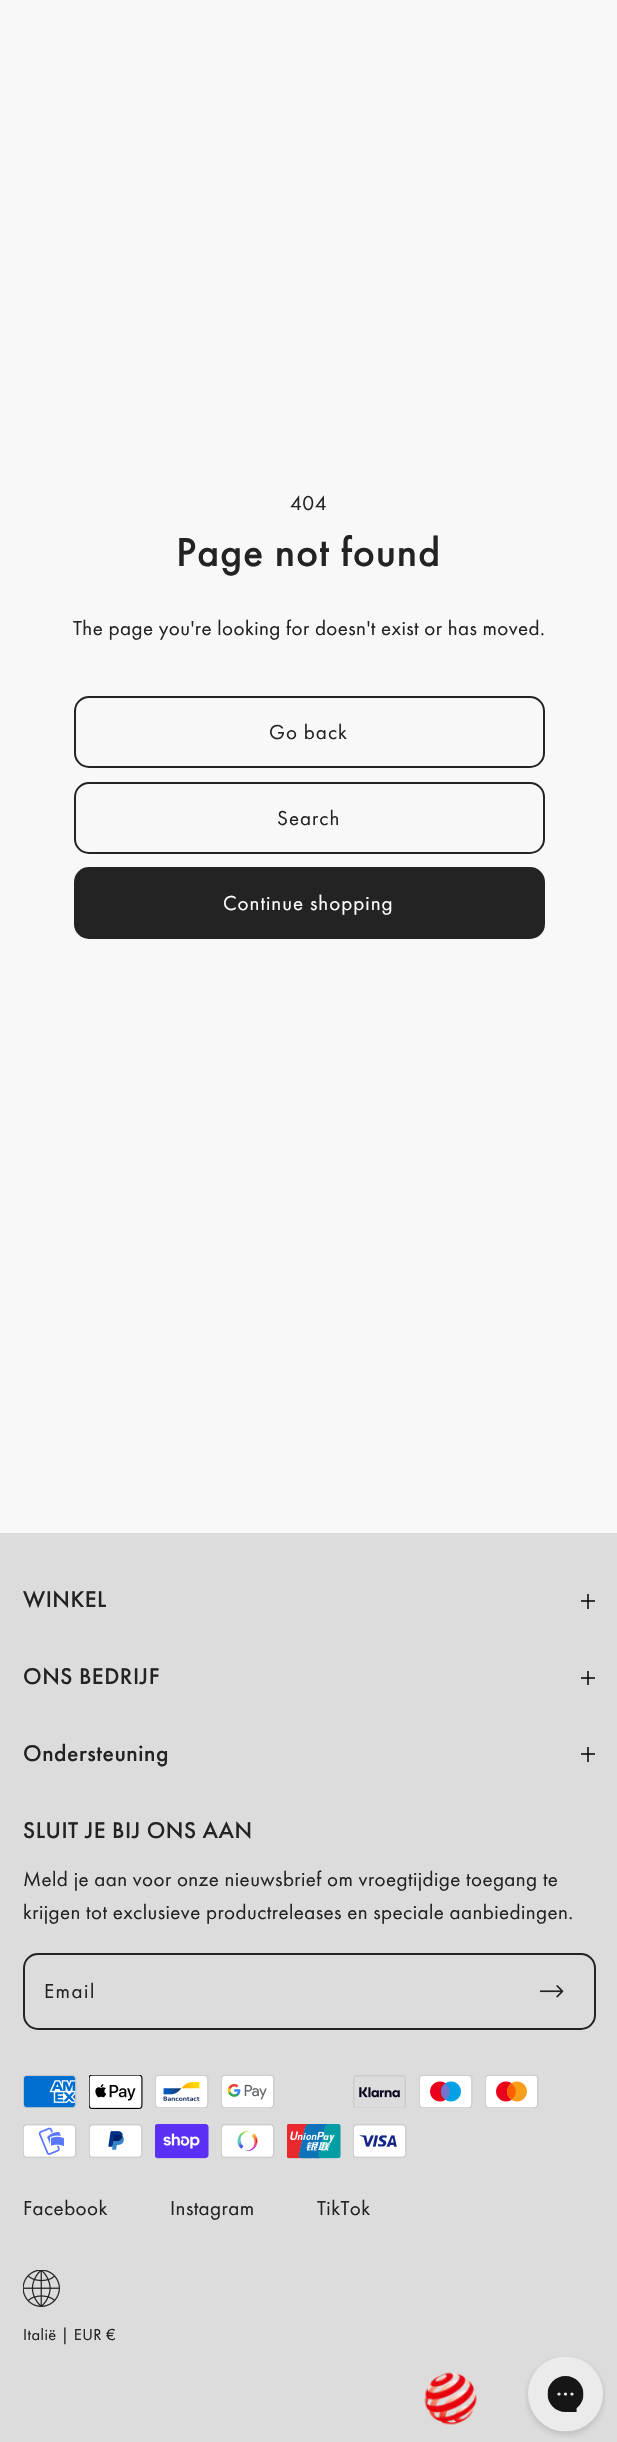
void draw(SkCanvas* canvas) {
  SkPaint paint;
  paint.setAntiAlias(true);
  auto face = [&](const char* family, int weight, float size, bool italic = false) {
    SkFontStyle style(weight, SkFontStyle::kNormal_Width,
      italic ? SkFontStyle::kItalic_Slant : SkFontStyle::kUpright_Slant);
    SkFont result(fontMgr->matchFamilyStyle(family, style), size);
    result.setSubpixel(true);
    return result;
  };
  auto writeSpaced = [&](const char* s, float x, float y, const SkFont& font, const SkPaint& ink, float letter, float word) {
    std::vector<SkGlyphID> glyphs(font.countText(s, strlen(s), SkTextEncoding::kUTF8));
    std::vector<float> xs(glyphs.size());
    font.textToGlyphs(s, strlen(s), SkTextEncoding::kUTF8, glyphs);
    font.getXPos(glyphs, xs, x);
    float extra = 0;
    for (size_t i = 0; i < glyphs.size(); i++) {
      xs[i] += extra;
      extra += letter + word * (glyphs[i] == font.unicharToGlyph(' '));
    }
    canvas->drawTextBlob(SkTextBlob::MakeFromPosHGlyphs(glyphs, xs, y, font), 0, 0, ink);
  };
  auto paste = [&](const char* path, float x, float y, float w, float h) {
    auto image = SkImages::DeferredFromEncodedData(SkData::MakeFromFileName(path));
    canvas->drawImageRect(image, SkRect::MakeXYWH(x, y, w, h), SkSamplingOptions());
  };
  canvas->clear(0xfff8f8f8);
  paint.setStroke(true);
  paint.setStrokeWidth(2);
  paint.setColor(0xff232323);
  canvas->drawRoundRect(SkRect::MakeXYWH(75, 697, 469, 70), 14, 14, paint);
  canvas->drawRoundRect(SkRect::MakeXYWH(75, 783, 469, 70), 14, 14, paint);
  paint.setStroke(false);
  canvas->drawRoundRect(SkRect::MakeXYWH(74, 867, 471, 72), 15, 15, paint);
  {
    const struct { float x, y, w, h; SkColor color; } items[] = {
      {0, 1533, 617, 909, 0xffdcdcdc},
      {581, 1753, 14, 2, 0xff373737},
      {581, 1677, 14, 2, 0xff373737},
      {581, 1600, 14, 2, 0xff373737},
      {587, 1594, 2, 15, 0xff373737},
      {587, 1600, 2, 2, 0xff0e0e0e},
      {587, 1671, 2, 14, 0xff373737},
      {587, 1677, 2, 2, 0xff0e0e0e},
      {587, 1747, 2, 15, 0xff373737},
      {587, 1753, 2, 2, 0xff0e0e0e},
    };
    for (auto [x, y, w, h, color] : items) {
      paint.setColor(color);
      canvas->drawRect(SkRect::MakeXYWH(x, y, w, h), paint);
    }
  }
  paint.setStroke(true);
  paint.setColor(0xff232323);
  canvas->drawRoundRect(SkRect::MakeXYWH(24, 1954, 571, 75), 14, 14, paint);
  paste("img/1.png", 540, 1985, 24, 13);
  paste("img/2.png", 23, 2075, 54, 33);
  paste("img/3.png", 89, 2075, 54, 34);
  paste("img/4.png", 155, 2075, 54, 33);
  paste("img/5.png", 221, 2075, 54, 33);
  paste("img/6.png", 353, 2075, 53, 33);
  paste("img/7.png", 419, 2075, 54, 33);
  paste("img/8.png", 485, 2075, 54, 33);
  paste("img/9.png", 23, 2124, 54, 34);
  paste("img/10.png", 89, 2124, 54, 34);
  paste("img/11.png", 155, 2124, 54, 35);
  paste("img/12.png", 221, 2124, 54, 34);
  paste("img/13.png", 287, 2124, 54, 35);
  paste("img/14.png", 353, 2124, 54, 34);
  paste("img/15.png", 23, 2270, 37, 37);
  paste("img/16.png", 424, 2372, 53, 53);
  paste("img/17.png", 525, 2356, 81, 82);
  auto f0 = face("Futura PT", 400, 21);
  paint.setStroke(false);
  writeSpaced("404", 290, 510, f0, paint, 0.42f, 0);
  auto f1 = face("Futura PT", 500, 42);
  writeSpaced("Page not found", 176, 566, f1, paint, 0.8f, 0);
  writeSpaced("The page you're looking for doesn't exist or has moved.", 73, 635, f0, paint, 0.42f, 0);
  writeSpaced("Go back", 269, 739, f0, paint, 1, 0);
  writeSpaced("Search", 277, 825, f0, paint, 1, 0);
  paint.setColor(0xffffffff);
  writeSpaced("Continue shopping", 223, 910, f0, paint, 1, 0);
  auto f2 = face("Futura PT", 500, 23.6f);
  paint.setColor(0xff232323);
  {
    const struct { const char* s; float x, y; } items[] = {
      {"WINKEL", 23, 1607},
      {"ONS BEDRIJF", 23, 1684},
      {"Ondersteuning", 23, 1761},
      {"SLUIT JE BIJ ONS AAN", 23, 1838},
    };
    for (auto [s, x, y] : items) {
      writeSpaced(s, x, y, f2, paint, 0.5f, 0);
    }
  }
  writeSpaced("Meld je aan voor onze nieuwsbrief om vroegtijdige toegang te", 23, 1886, f0, paint, 0.42f, 0);
  writeSpaced("krijgen tot exclusieve productreleases en speciale aanbiedingen.", 23, 1919, f0, paint, 0.42f, 0);
  writeSpaced("Email", 44, 1998, f0, paint, 1.5f, 0);
  {
    const struct { const char* s; float x, y; } items[] = {
      {"Facebook", 23, 2215},
      {"Instagram", 170, 2215},
      {"TikTok", 317, 2215},
    };
    for (auto [s, x, y] : items) {
      writeSpaced(s, x, y, f0, paint, 0.42f, 0);
    }
  }
  auto f3 = face("Futura PT", 400, 16.5f);
  writeSpaced("Italië | EUR €", 23, 2340, f3, paint, 0.42f, 0);
}
